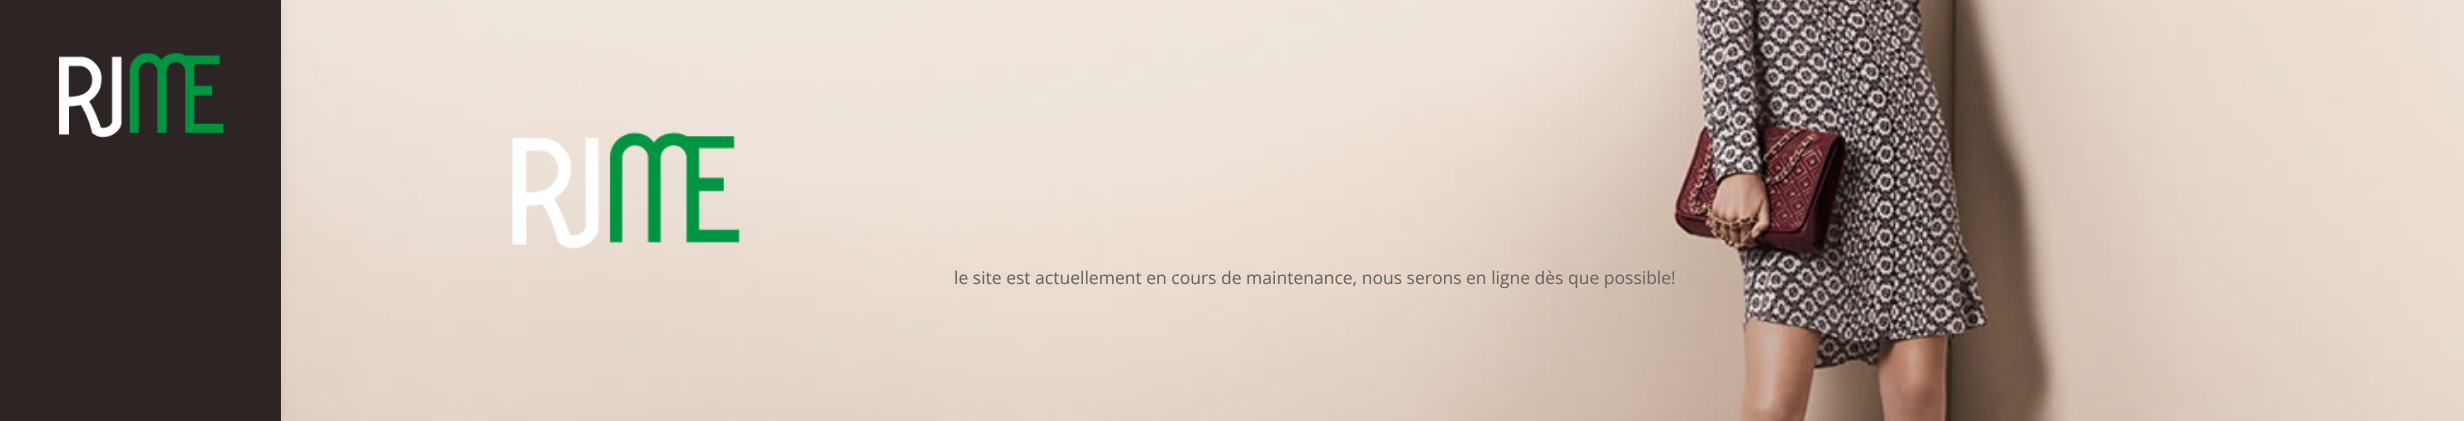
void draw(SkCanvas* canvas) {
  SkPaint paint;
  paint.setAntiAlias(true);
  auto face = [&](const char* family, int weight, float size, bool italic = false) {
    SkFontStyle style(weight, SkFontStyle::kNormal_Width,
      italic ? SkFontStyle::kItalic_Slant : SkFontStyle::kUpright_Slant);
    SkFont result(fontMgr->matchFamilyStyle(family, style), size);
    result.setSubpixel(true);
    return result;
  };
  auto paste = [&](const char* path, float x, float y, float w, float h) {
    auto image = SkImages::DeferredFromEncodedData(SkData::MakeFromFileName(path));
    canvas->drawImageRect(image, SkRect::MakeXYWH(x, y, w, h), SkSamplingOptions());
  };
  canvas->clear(0xffffffff);
  paste("img/2.png", 281, 0, 2183, 421);
  paint.setColor(0x1a000000);
  paint.setMaskFilter(SkMaskFilter::MakeBlur(kNormal_SkBlurStyle, 4.5f));
  canvas->drawRect(SkRect::MakeXYWH(0, 0, 281, 421), paint);
  paint.setMaskFilter(nullptr);
  paint.setColor(0xff2d2424);
  canvas->drawRect(SkRect::MakeXYWH(0, 0, 281, 421), paint);
  paste("img/1.png", 59, 52, 165, 86);
  paste("img/3.png", 512, 132, 229, 117);
  auto f0 = face("Open Sans", 400, 17.5f);
  paint.setColor(0xff666666);
  canvas->drawString("le site est actuellement en cours de maintenance, nous serons en ligne dès que possible!", 954, 284, f0, paint);
}
